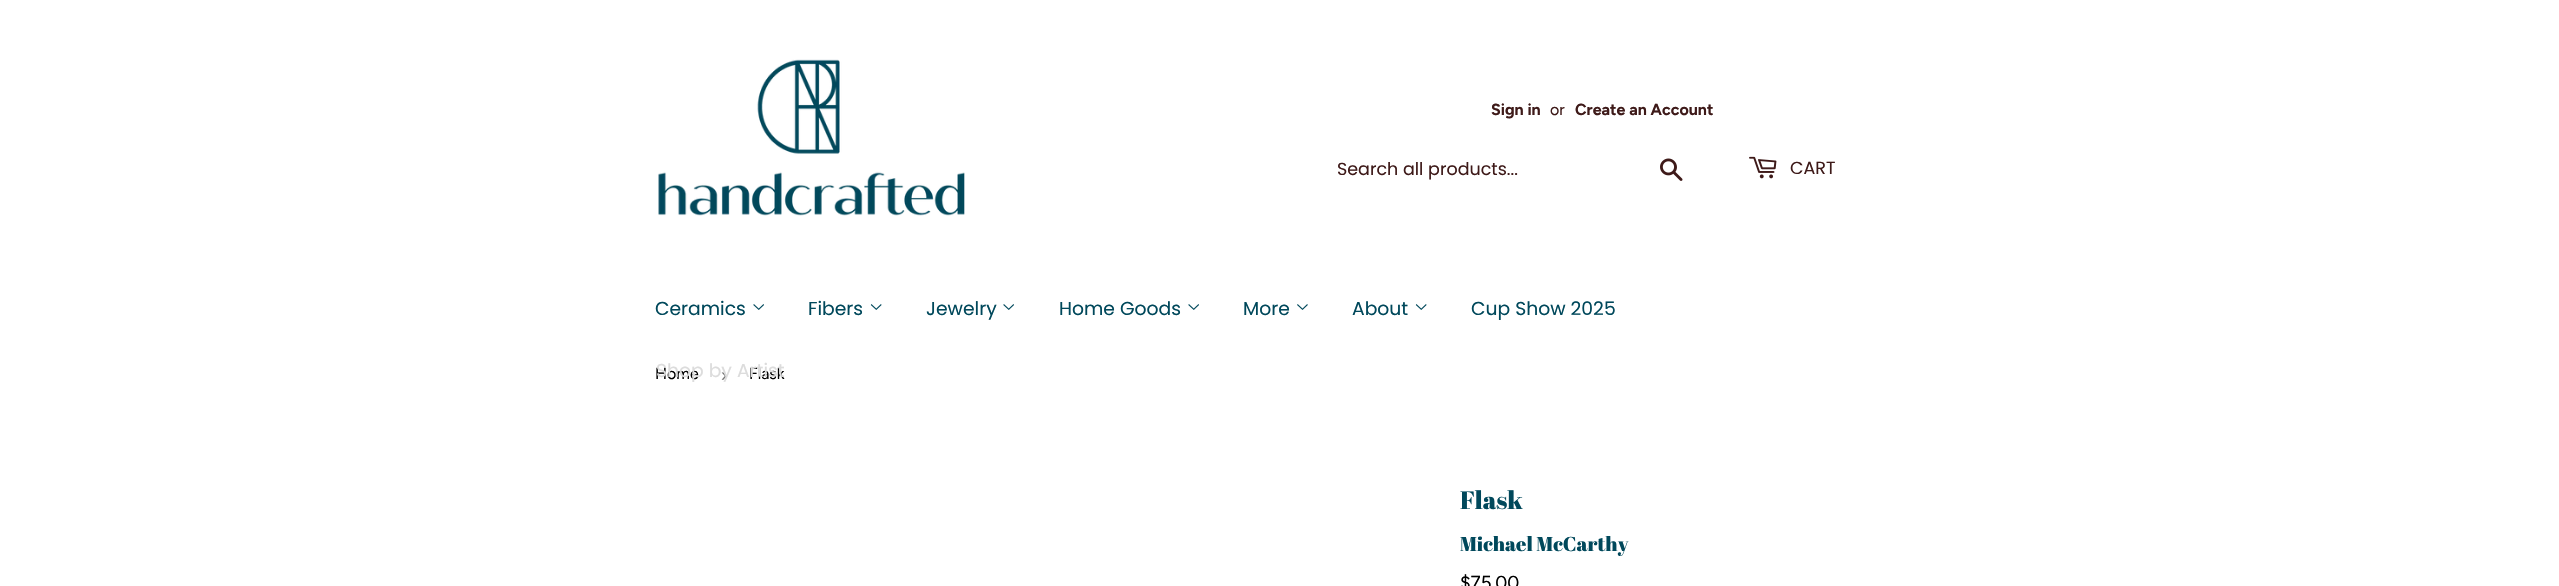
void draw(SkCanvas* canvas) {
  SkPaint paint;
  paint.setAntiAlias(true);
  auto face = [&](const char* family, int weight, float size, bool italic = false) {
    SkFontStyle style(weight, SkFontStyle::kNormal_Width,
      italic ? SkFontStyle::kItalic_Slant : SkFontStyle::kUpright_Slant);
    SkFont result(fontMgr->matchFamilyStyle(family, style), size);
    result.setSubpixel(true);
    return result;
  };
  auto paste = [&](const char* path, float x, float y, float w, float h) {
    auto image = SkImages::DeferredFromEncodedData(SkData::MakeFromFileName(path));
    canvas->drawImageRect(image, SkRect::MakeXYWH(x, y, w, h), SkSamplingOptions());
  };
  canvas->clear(0xffffffff);
  paste("img/1.png", 658, 59, 307, 157);
  paste("img/2.png", 1660, 158, 23, 23);
  paste("img/3.png", 1749, 156, 28, 23);
  paste("img/4.png", 753, 304, 11, 6);
  paste("img/5.png", 870, 304, 12, 6);
  paste("img/4.png", 1003, 304, 11, 6);
  paste("img/4.png", 1188, 304, 11, 6);
  paste("img/6.png", 1297, 304, 11, 6);
  paste("img/5.png", 1415, 304, 12, 6);
  auto f0 = face("Figtree", 700, 16);
  paint.setColor(0xff3e1a19);
  canvas->drawString("Sign in", 1491, 115, f0, paint);
  auto f1 = face("Figtree", 400, 16);
  canvas->drawString("or", 1550, 115, f1, paint);
  canvas->drawString("Create an Account", 1575, 115, f0, paint);
  auto f2 = face("Poppins", 400, 17.5f);
  canvas->drawString("Search all products...", 1337, 175, f2, paint);
  canvas->drawString("CART", 1790, 174, f2, paint);
  auto f3 = face("Poppins", 400, 18.75f);
  paint.setColor(0xff00485b);
  {
    const struct { const char* s; float x, y; } items[] = {
      {"Ceramics", 655, 315},
      {"Fibers", 808, 315},
      {"Jewelry", 926, 315},
      {"Home Goods", 1059, 315},
      {"More", 1243, 315},
      {"About", 1352, 315},
      {"Cup Show 2025", 1471, 315},
    };
    for (auto [s, x, y] : items) {
      canvas->drawString(s, x, y, f3, paint);
    }
  }
  paint.setColor(0xff000000);
  canvas->drawString("Home", 655, 379, f1, paint);
  auto f4 = face("Liberation Sans", 400, 18.75f);
  paint.setColor(0xff767676);
  canvas->drawString("›", 721, 381, f4, paint);
  paint.setColor(0xff000000);
  canvas->drawString("Flask", 749, 379, f1, paint);
  paint.setColor(0xffdcdcdc);
  canvas->drawString("Shop by Artist", 656, 377, f3, paint);
  auto f5 = face("Abril Fatface", 400, 25);
  paint.setColor(0xff00485b);
  canvas->drawString("Flask", 1460, 509, f5, paint);
  auto f6 = face("Abril Fatface", 400, 20);
  canvas->drawString("Michael McCarthy", 1460, 551, f6, paint);
  auto f7 = face("Figtree", 400, 18.75f);
  paint.setColor(0xff000000);
  canvas->drawString("$75.00", 1460, 589, f7, paint);
}
